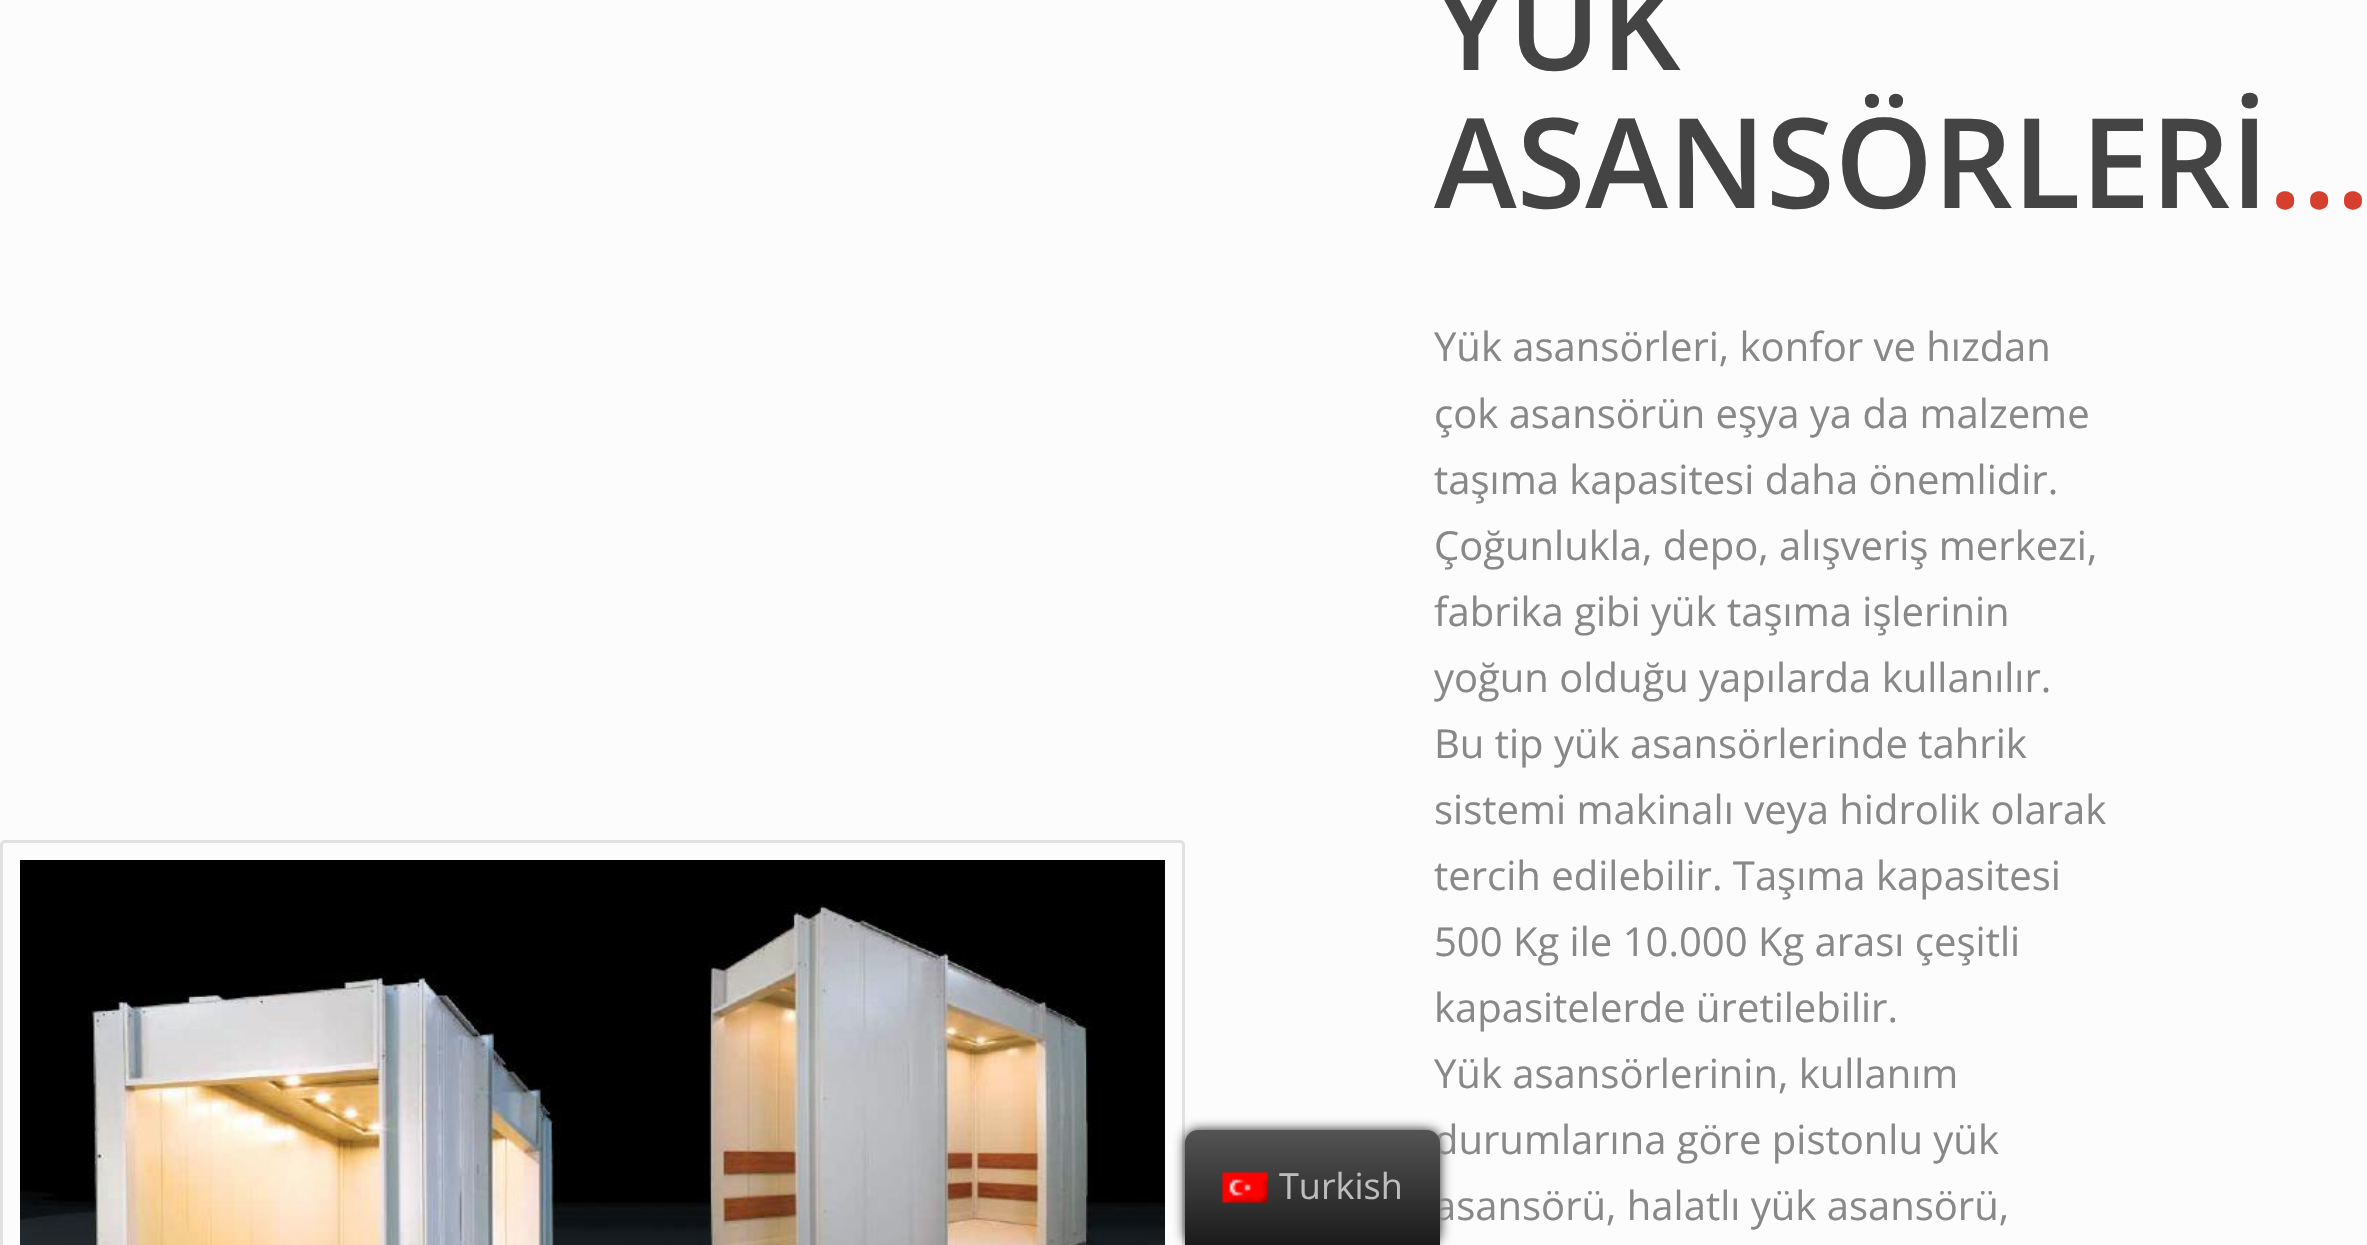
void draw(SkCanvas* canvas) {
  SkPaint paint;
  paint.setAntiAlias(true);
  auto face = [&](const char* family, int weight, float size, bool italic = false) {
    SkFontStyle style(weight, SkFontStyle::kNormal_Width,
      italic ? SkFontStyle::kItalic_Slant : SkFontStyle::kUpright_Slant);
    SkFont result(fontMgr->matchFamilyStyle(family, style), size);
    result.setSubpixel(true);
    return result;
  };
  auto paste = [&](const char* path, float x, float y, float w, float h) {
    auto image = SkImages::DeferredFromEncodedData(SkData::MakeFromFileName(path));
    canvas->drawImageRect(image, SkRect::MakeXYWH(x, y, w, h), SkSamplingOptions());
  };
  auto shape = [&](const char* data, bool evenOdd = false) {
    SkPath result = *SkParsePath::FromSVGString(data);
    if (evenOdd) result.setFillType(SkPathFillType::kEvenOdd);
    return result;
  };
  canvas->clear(0xfffcfcfc);
  paint.setStroke(true);
  paint.setStrokeWidth(3);
  paint.setColor(0xffe1e1e1);
  canvas->drawPath(shape("M5 841.5H1180C1182 841.5 1183.5 843 1183.5 845V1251.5H1.5V845C1.5 843 3 841.5 5 841.5Z"), paint);
  paint.setStroke(false);
  paint.setColor(0xff212121);
  paint.setMaskFilter(SkMaskFilter::MakeBlur(kNormal_SkBlurStyle, 6));
  canvas->drawRoundRect(SkRect::MakeXYWH(1185, 1130, 255, 115), 13, 13, paint);
  paint.setMaskFilter(nullptr);
  paste("img/2.png", 20, 860, 1145, 385);
  auto f0 = face("Open Sans", 600, 125);
  paint.setColor(0xff444444);
  canvas->drawString("YÜK", 1434, 70, f0, paint);
  canvas->drawString("ASANSÖRLERİ", 1434, 208, f0, paint);
  paint.setColor(0xffd63e2d);
  canvas->drawString("…", 2268, 208, f0, paint);
  auto f1 = face("Open Sans", 400, 40);
  paint.setColor(0xff888888);
  {
    const struct { const char* s; float x, y; } items[] = {
      {"Yük asansörleri, konfor ve hızdan", 1434, 361},
      {"çok asansörün eşya ya da malzeme", 1434, 428},
      {"taşıma kapasitesi daha önemlidir.", 1434, 494},
      {"Çoğunlukla, depo, alışveriş merkezi,", 1434, 560},
      {"fabrika gibi yük taşıma işlerinin", 1434, 626},
      {"yoğun olduğu yapılarda kullanılır.", 1434, 692},
      {"Bu tip yük asansörlerinde tahrik", 1434, 758},
      {"sistemi makinalı veya hidrolik olarak", 1434, 824},
      {"tercih edilebilir. Taşıma kapasitesi", 1434, 890},
      {"500 Kg ile 10.000 Kg arası çeşitli", 1434, 956},
      {"kapasitelerde üretilebilir.", 1434, 1022},
      {"Yük asansörlerinin, kullanım", 1434, 1088},
      {"durumlarına göre pistonlu yük", 1434, 1154},
      {"asansörü, halatlı yük asansörü,", 1434, 1220},
    };
    for (auto [s, x, y] : items) {
      canvas->drawString(s, x, y, f1, paint);
    }
  }
  {
    const SkColor colors[] = {0xff1b1b1b, 0xff545454};
    const float stops[] = {0, 1};
    const SkPoint ends[] = {{1313, 1245}, {1313, 1130}};
    paint.setShader(SkGradientShader::MakeLinear(ends, colors, stops, 2, SkTileMode::kClamp));
    paint.setAlpha(255);
  }
  canvas->drawPath(shape("M1198 1130H1427C1434 1130 1440 1136 1440 1143V1245H1185V1143C1185 1136 1191 1130 1198 1130Z"), paint);
  auto f2 = face("Open Sans", 400, 36);
  paint.setShader(nullptr);
  paint.setColor(0xffbdbdbd);
  canvas->drawString("Turkish", 1279, 1199, f2, paint);
  paste("img/1.png", 1221, 1172, 47, 32);
}
